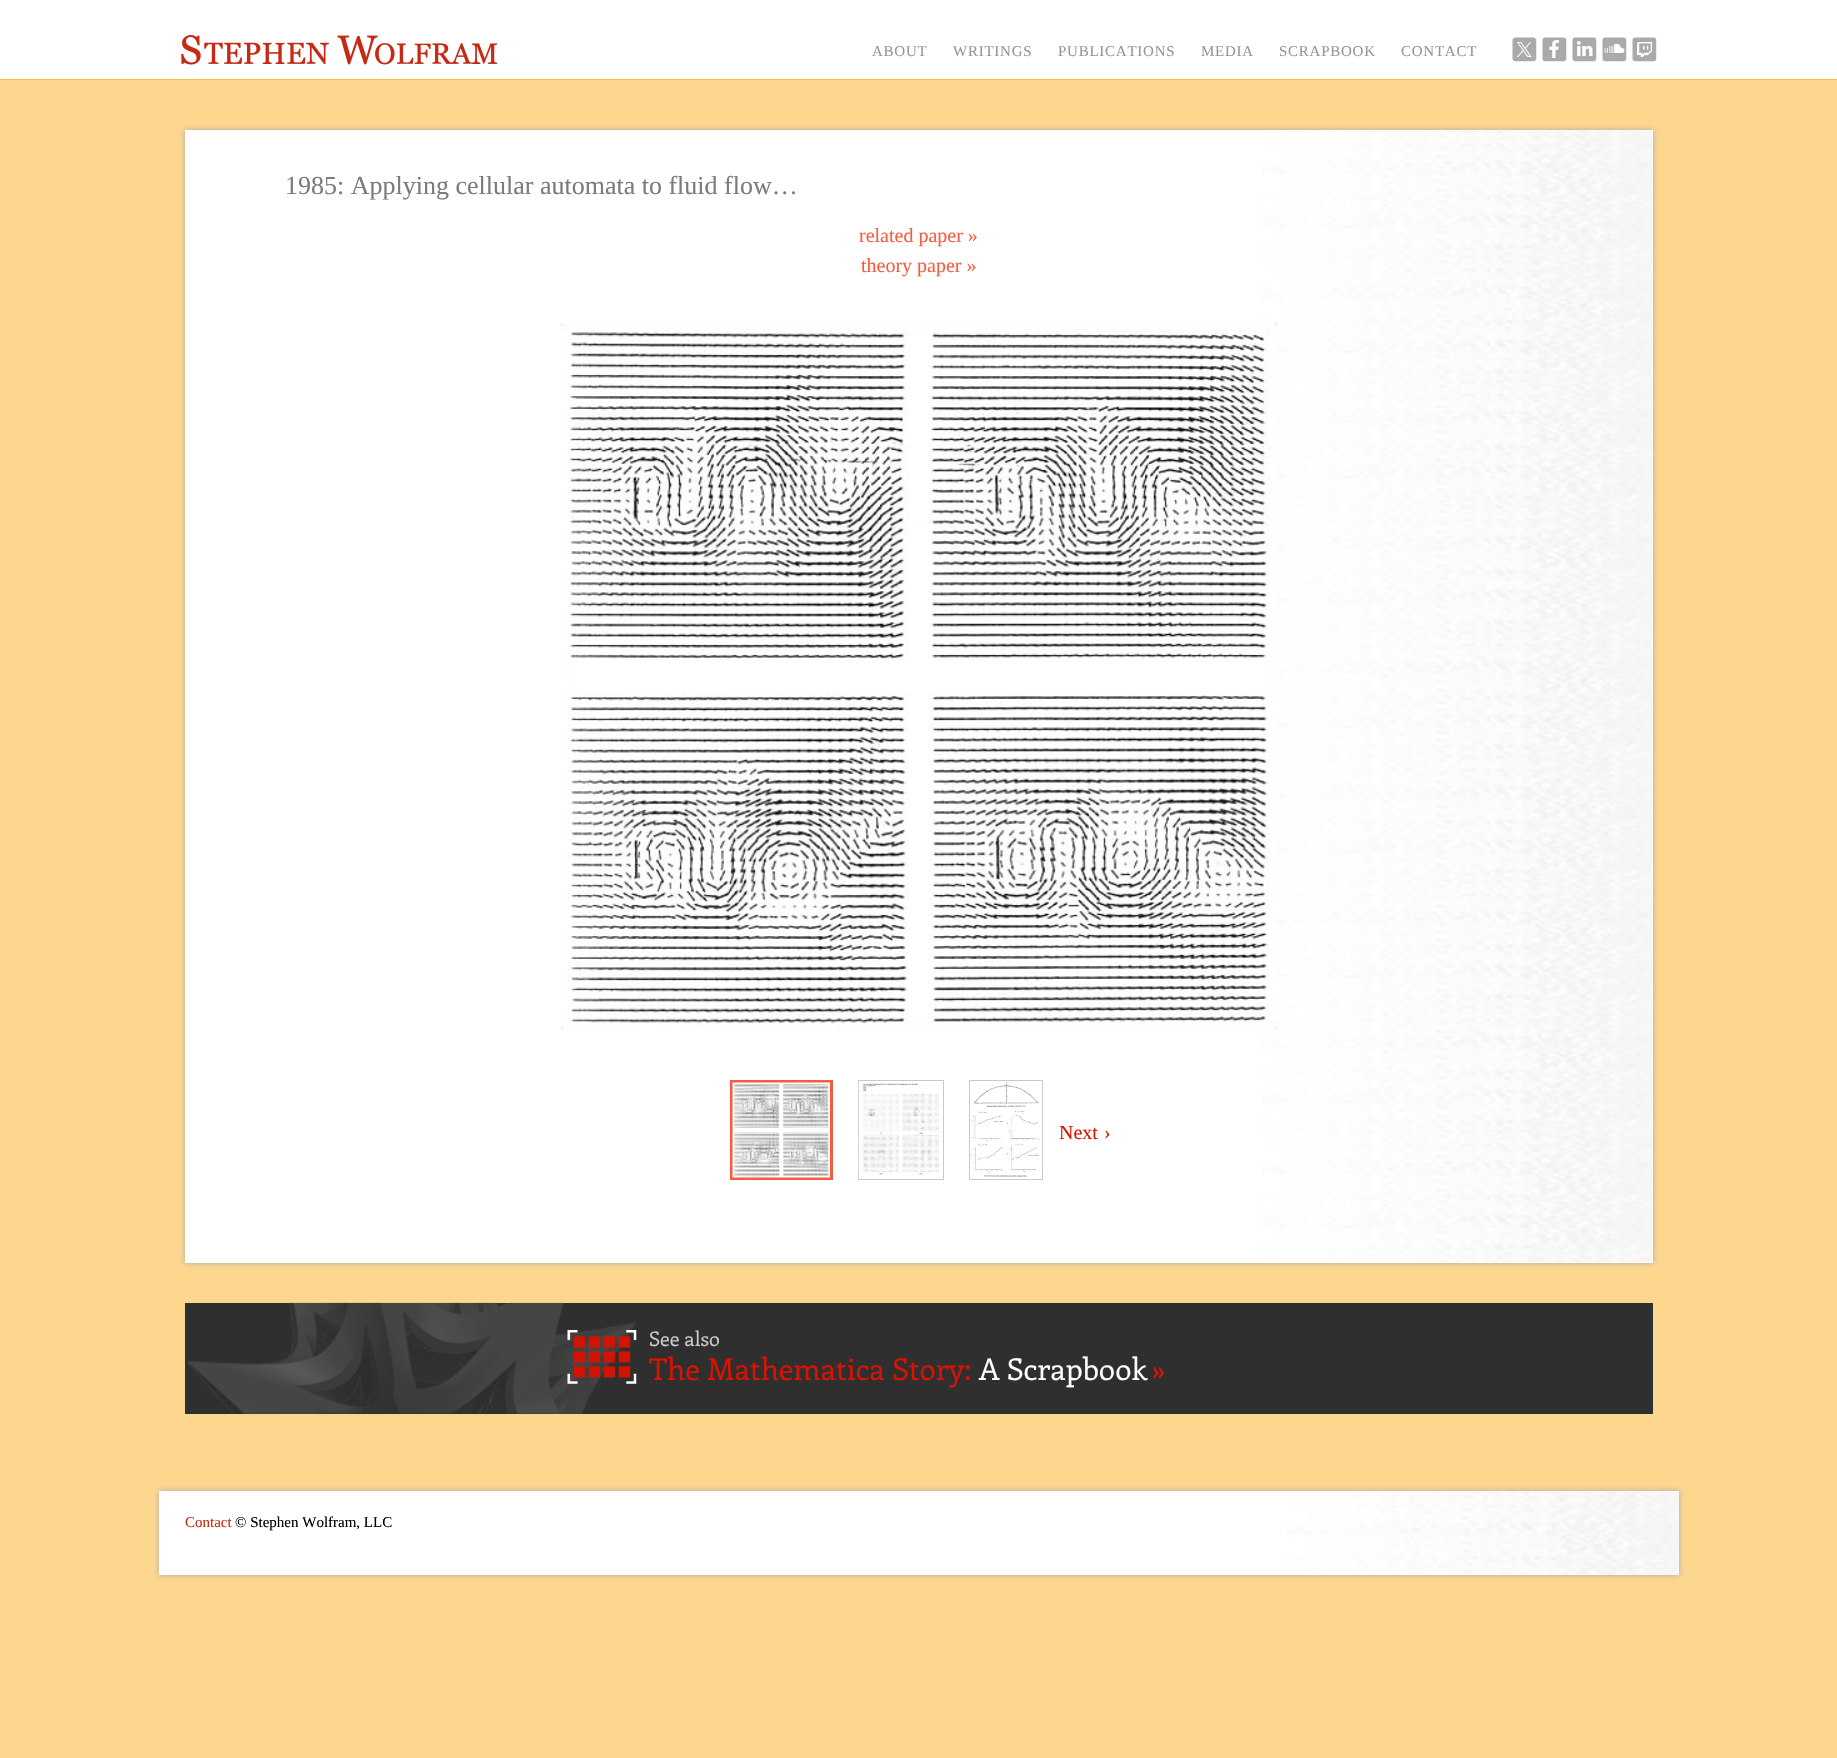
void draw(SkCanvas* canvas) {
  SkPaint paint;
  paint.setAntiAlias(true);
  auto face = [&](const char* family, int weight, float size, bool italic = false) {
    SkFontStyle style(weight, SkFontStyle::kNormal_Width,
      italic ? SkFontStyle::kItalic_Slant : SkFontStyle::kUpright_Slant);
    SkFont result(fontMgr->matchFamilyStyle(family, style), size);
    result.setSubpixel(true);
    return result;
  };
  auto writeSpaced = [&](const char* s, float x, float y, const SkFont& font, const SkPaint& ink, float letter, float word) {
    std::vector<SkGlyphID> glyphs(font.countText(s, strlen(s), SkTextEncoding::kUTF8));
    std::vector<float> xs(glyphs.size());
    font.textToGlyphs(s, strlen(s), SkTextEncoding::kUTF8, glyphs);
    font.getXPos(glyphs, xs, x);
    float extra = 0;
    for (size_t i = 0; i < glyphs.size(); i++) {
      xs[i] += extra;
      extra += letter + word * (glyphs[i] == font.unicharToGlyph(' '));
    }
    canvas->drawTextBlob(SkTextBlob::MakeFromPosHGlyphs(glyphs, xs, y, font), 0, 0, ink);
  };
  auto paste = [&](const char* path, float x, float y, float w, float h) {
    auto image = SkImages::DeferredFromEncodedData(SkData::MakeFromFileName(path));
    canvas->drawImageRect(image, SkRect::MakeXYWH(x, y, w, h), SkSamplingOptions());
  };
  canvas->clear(0xffffffff);
  paste("img/1.png", 181, 35, 317, 30);
  paste("img/2.png", 1512, 37, 25, 25);
  paste("img/3.png", 1542, 37, 25, 25);
  paste("img/4.png", 1572, 37, 25, 25);
  paste("img/5.png", 1602, 37, 25, 25);
  paste("img/6.png", 1632, 37, 25, 25);
  paint.setColor(0xfffdbf3d);
  canvas->drawRect(SkRect::MakeXYWH(0, 79, 1837, 1), paint);
  paint.setColor(0xfffed78f);
  canvas->drawRect(SkRect::MakeXYWH(0, 80, 1837, 1678), paint);
  paint.setColor(0xffaaaaaa);
  paint.setMaskFilter(SkMaskFilter::MakeBlur(kNormal_SkBlurStyle, 3));
  canvas->drawRect(SkRect::MakeXYWH(185, 130, 1468, 1133), paint);
  paint.setMaskFilter(nullptr);
  paint.setColor(0xffffffff);
  canvas->drawRect(SkRect::MakeXYWH(185, 130, 1468, 1133), paint);
  paste("img/7.png", 1262, 130, 391, 1133);
  paste("img/8.png", 561, 323, 716, 706);
  paint.setStroke(true);
  paint.setStrokeWidth(3);
  paint.setColor(0xfff85b42);
  canvas->drawRect(SkRect::MakeXYWH(731.5f, 1081.5f, 100, 97), paint);
  paste("img/9.png", 732, 1082, 98, 96);
  paint.setStrokeWidth(1);
  paint.setColor(0xffc9c9c9);
  canvas->drawRect(SkRect::MakeXYWH(858.5f, 1080.5f, 85, 99), paint);
  paste("img/10.png", 858, 1081, 83, 98);
  canvas->drawRect(SkRect::MakeXYWH(969.5f, 1080.5f, 73, 99), paint);
  paste("img/11.png", 970, 1081, 71, 96);
  paint.setStroke(false);
  paint.setColor(0xff2f2f2f);
  canvas->drawRect(SkRect::MakeXYWH(185, 1303, 1468, 111), paint);
  paste("img/12.png", 187, 1302, 449, 112);
  paste("img/13.png", 567, 1330, 70, 54);
  paint.setColor(0xffaaaaaa);
  paint.setMaskFilter(SkMaskFilter::MakeBlur(kNormal_SkBlurStyle, 3));
  canvas->drawRect(SkRect::MakeXYWH(159, 1491, 1520, 84), paint);
  paint.setMaskFilter(nullptr);
  paint.setColor(0xffffffff);
  canvas->drawRect(SkRect::MakeXYWH(159, 1491, 1520, 84), paint);
  paste("img/14.png", 1287, 1491, 392, 84);
  auto f0 = face("Liberation Serif", 400, 15);
  paint.setColor(0xff959595);
  {
    const struct { const char* s; float x, y; } items[] = {
      {"ABOUT", 872, 56},
      {"WRITINGS", 953, 56},
      {"PUBLICATIONS", 1058, 56},
      {"MEDIA", 1201, 56},
      {"SCRAPBOOK", 1279, 56},
      {"CONTACT", 1401, 56},
    };
    for (auto [s, x, y] : items) {
      writeSpaced(s, x, y, f0, paint, 0.75f, 0);
    }
  }
  auto f1 = face("Liberation Serif", 400, 26);
  paint.setColor(0xff7c7c7c);
  canvas->drawString("1985: Applying cellular automata to fluid flow…", 285, 194, f1, paint);
  auto f2 = face("Liberation Serif", 400, 20);
  paint.setColor(0xfff85b42);
  canvas->drawString("related paper »", 859, 242, f2, paint);
  canvas->drawString("theory paper »", 861, 272, f2, paint);
  paint.setColor(0xffdd1100);
  canvas->drawString("Next", 1059, 1139, f2, paint);
  canvas->drawString("›", 1104, 1139, f2, paint);
  auto f3 = face("Enriqueta", 400, 20);
  paint.setColor(0xffc9c9c9);
  canvas->drawString("See also", 649, 1346, f3, paint);
  auto f4 = face("Enriqueta", 400, 30);
  paint.setColor(0xffdd1100);
  canvas->drawString("The Mathematica Story:", 649, 1380, f4, paint);
  paint.setColor(0xffffffff);
  canvas->drawString("A Scrapbook", 979, 1380, f4, paint);
  paint.setColor(0xffdd1100);
  canvas->drawString("»", 1152, 1380, f4, paint);
  paint.setColor(0xffc62a14);
  canvas->drawString("Contact", 185, 1527, f0, paint);
  paint.setColor(0xff000000);
  canvas->drawString("© Stephen Wolfram, LLC", 235, 1527, f0, paint);
}
